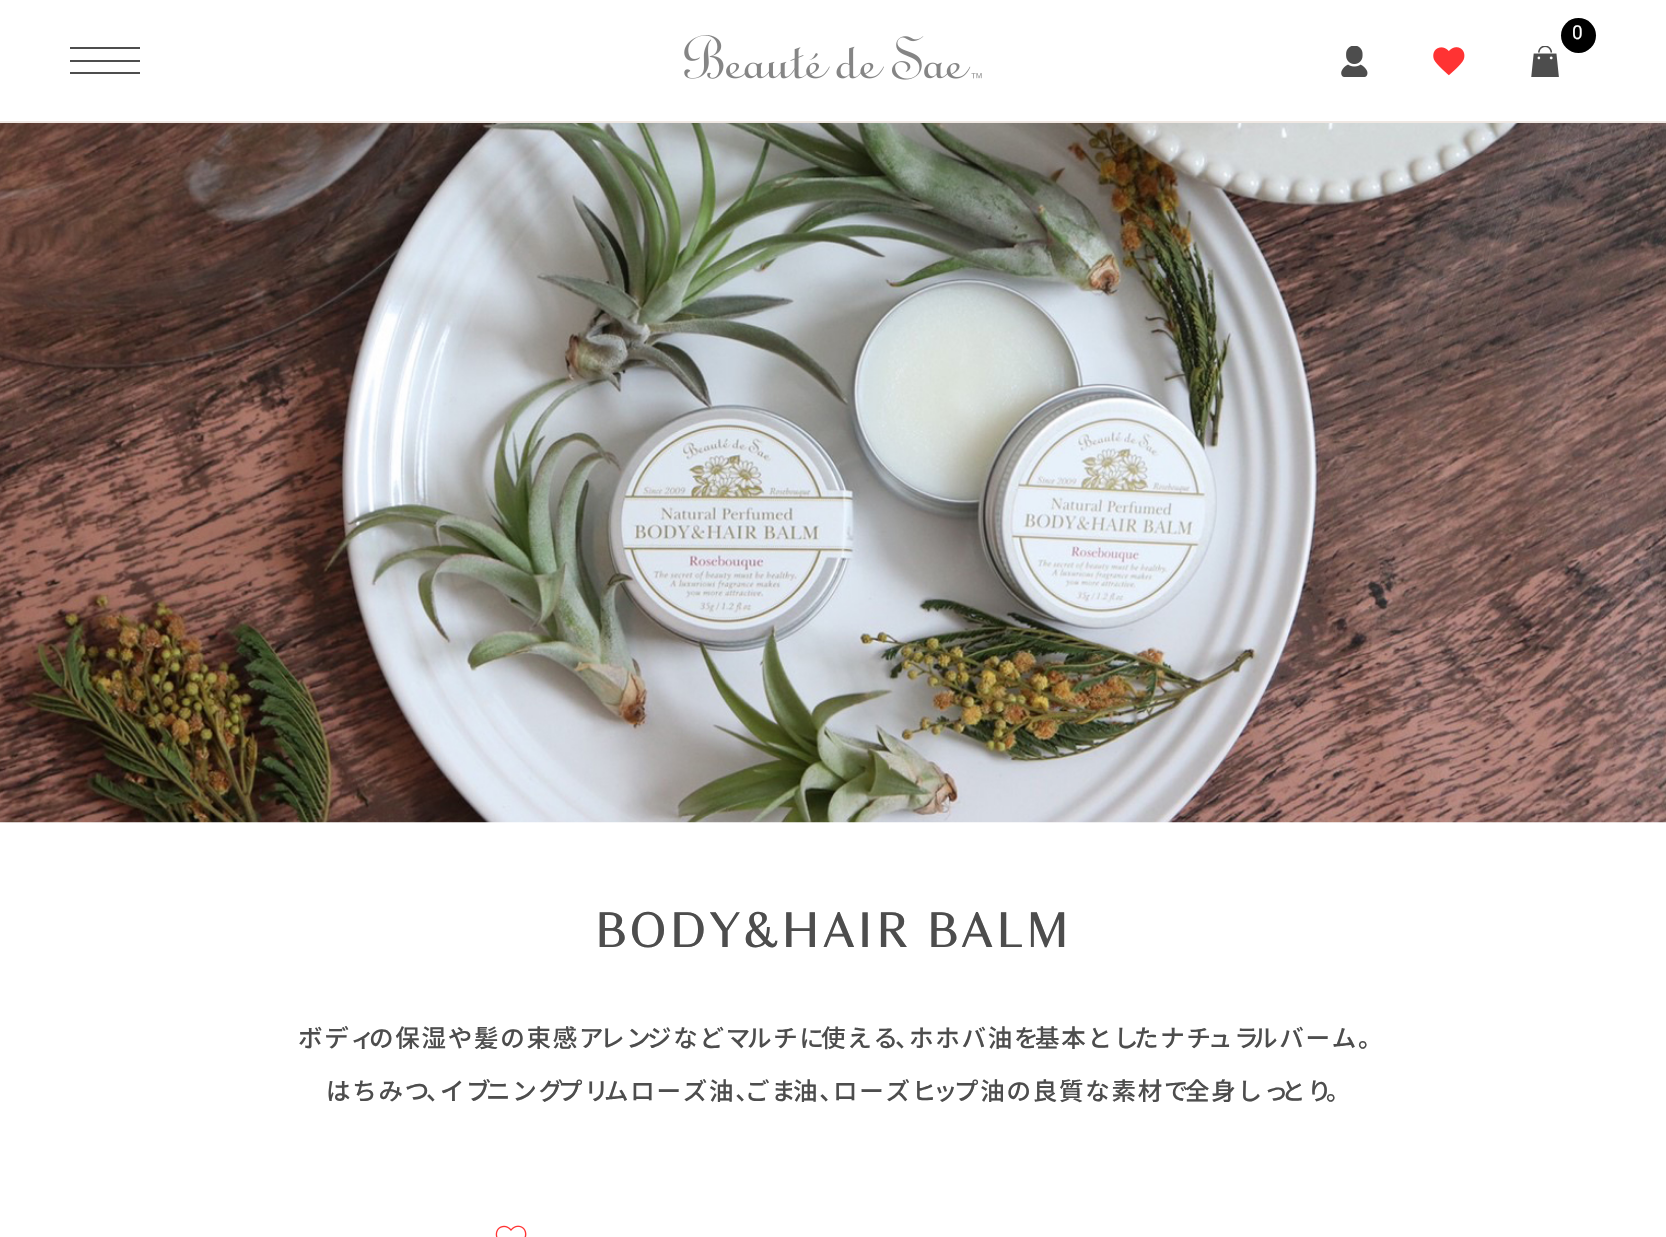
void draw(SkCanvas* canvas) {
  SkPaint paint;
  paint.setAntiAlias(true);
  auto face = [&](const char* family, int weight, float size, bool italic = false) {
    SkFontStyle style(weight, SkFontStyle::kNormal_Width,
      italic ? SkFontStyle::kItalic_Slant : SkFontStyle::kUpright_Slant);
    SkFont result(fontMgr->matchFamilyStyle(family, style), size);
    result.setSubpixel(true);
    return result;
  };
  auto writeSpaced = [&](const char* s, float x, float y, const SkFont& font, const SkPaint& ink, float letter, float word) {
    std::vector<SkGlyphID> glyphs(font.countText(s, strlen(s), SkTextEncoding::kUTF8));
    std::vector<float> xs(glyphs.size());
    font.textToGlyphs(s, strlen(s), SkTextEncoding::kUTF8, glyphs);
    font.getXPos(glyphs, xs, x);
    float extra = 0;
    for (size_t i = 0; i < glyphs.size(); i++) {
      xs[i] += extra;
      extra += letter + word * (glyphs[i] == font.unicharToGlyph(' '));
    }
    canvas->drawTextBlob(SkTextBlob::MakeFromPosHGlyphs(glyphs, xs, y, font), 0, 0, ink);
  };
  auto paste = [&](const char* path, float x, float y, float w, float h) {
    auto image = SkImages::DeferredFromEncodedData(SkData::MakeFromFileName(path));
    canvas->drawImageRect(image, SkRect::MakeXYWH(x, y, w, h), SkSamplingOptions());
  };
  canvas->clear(0xffffffff);
  paint.setColor(0xfff0e8e3);
  canvas->drawRect(SkRect::MakeXYWH(0, 121, 1666, 2), paint);
  paint.setColor(0xff000000);
  canvas->drawCircle(1578.5f, 35.5f, 17.5f, paint);
  paste("img/1.png", 1531, 46, 28, 31);
  paste("img/2.png", 1341, 46, 27, 31);
  paste("img/3.png", 1433, 47, 32, 29);
  {
    const struct { float x, y, w, h; SkColor color; } items[] = {
      {70, 47, 70, 2, 0xff4d4d4d},
      {70, 60, 70, 2, 0xff4d4d4d},
      {70, 72, 70, 2, 0xff4d4d4d},
    };
    for (auto [x, y, w, h, color] : items) {
      paint.setColor(color);
      canvas->drawRect(SkRect::MakeXYWH(x, y, w, h), paint);
    }
  }
  paste("img/4.png", 684, 35, 298, 45);
  paste("img/5.png", 0, 123, 1666, 700);
  paste("img/6.png", 495, 1225, 32, 12);
  auto f0 = face("Roboto", 400, 19);
  paint.setColor(0xffffffff);
  writeSpaced("0", 1572, 39, f0, paint, 1.75f, 0);
  auto f1 = face("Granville", 400, 52.5f);
  paint.setColor(0xff4d4d4d);
  writeSpaced("BODY&HAIR BALM", 594, 947, f1, paint, 1.75f, 0);
  auto f2 = face("Noto Sans JP", 500, 24.5f);
  writeSpaced("ボディ", 298, 1047, f2, paint, 1.75f, 0);
  writeSpaced("の保湿や髪の束感ア", 369, 1047, f2, paint, 1.75f, 0);
  writeSpaced("レン", 600, 1047, f2, paint, 1.75f, 0);
  writeSpaced("ジなどマ", 647, 1047, f2, paint, 1.75f, 0);
  writeSpaced("ルチに", 747, 1047, f2, paint, 1.75f, 0);
  writeSpaced("使える", 821, 1047, f2, paint, 1.75f, 0);
  writeSpaced("、", 895, 1047, f2, paint, 1.75f, 0);
  writeSpaced("ホホバ油を", 909, 1047, f2, paint, 1.75f, 0);
  writeSpaced("基本とし", 1035, 1047, f2, paint, 1.75f, 0);
  writeSpaced("たナチ", 1134, 1047, f2, paint, 1.75f, 0);
  writeSpaced("ュラ", 1208, 1047, f2, paint, 1.75f, 0);
  writeSpaced("ルバーム。", 1253, 1047, f2, paint, 1.75f, 0);
  writeSpaced("はちみつ", 326, 1100, f2, paint, 1.75f, 0);
  writeSpaced("、", 426, 1100, f2, paint, 1.75f, 0);
  writeSpaced("イブ", 440, 1100, f2, paint, 1.75f, 0);
  writeSpaced("ニング", 486, 1100, f2, paint, 1.75f, 0);
  writeSpaced("プリ", 558, 1100, f2, paint, 1.75f, 0);
  writeSpaced("ムローズ油、", 604, 1100, f2, paint, 1.75f, 0);
  writeSpaced("ごま", 745, 1100, f2, paint, 1.75f, 0);
  writeSpaced("油、", 793, 1100, f2, paint, 1.75f, 0);
  writeSpaced("ローズヒ", 833, 1100, f2, paint, 1.75f, 0);
  writeSpaced("ッ", 933, 1100, f2, paint, 1.75f, 0);
  writeSpaced("プ油の良質な素材で", 954, 1100, f2, paint, 1.75f, 0);
  writeSpaced("全身しっ", 1185, 1100, f2, paint, 1.75f, 0);
  writeSpaced("とり", 1281, 1100, f2, paint, 1.75f, 0);
  writeSpaced("。", 1326, 1100, f2, paint, 1.75f, 0);
}
